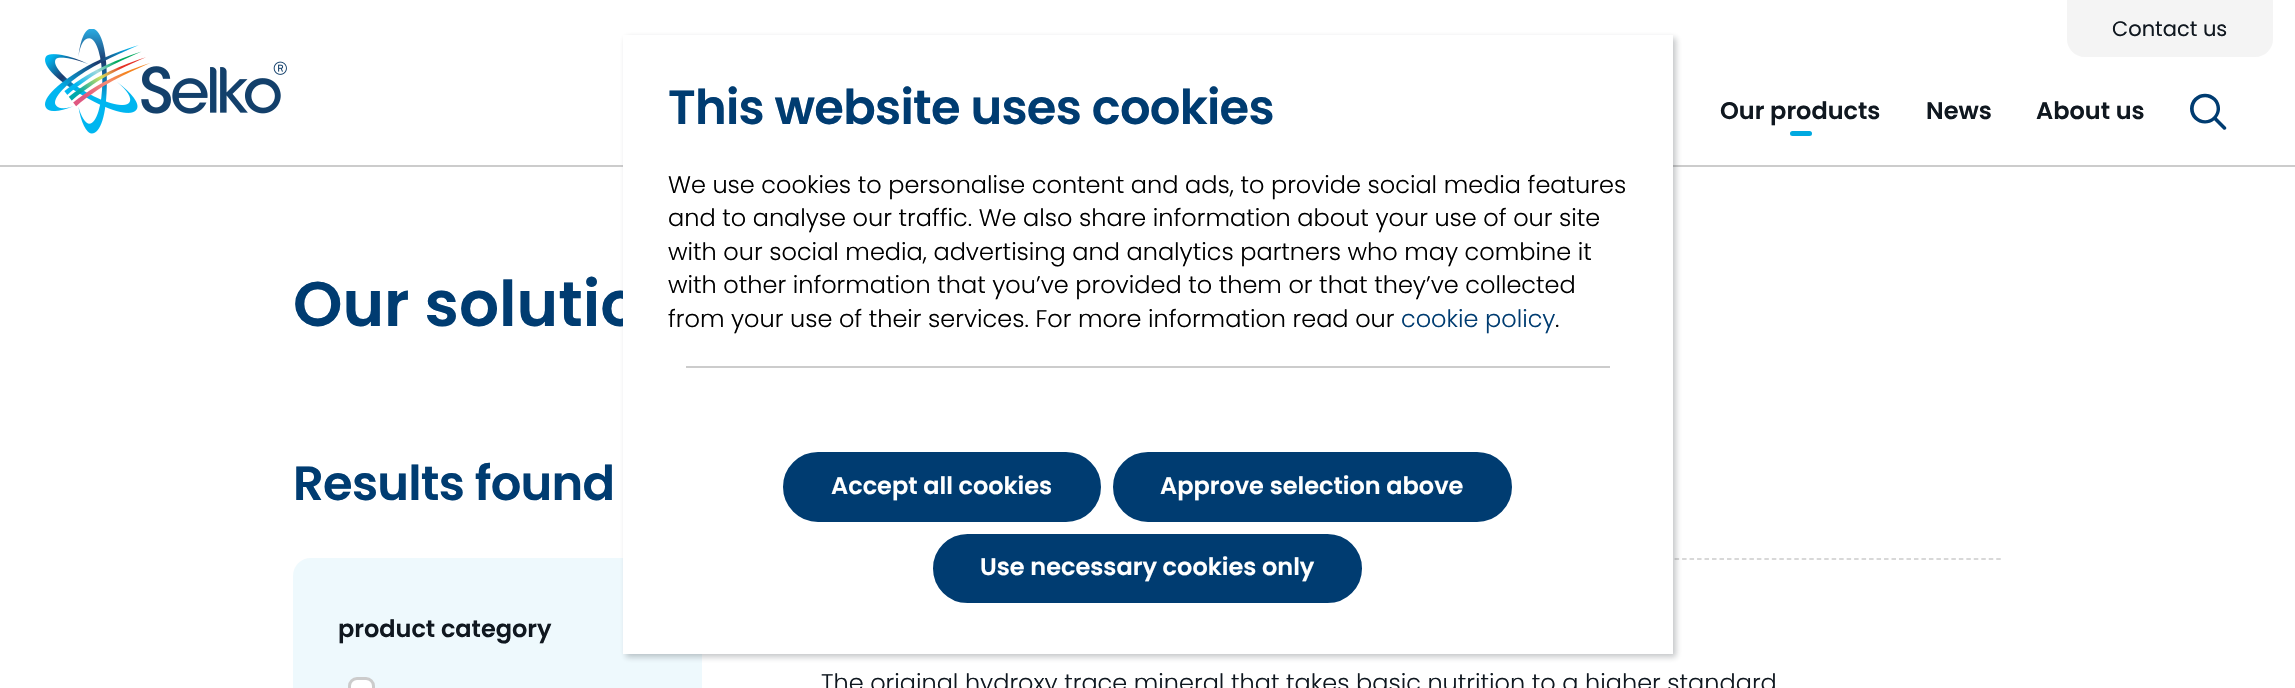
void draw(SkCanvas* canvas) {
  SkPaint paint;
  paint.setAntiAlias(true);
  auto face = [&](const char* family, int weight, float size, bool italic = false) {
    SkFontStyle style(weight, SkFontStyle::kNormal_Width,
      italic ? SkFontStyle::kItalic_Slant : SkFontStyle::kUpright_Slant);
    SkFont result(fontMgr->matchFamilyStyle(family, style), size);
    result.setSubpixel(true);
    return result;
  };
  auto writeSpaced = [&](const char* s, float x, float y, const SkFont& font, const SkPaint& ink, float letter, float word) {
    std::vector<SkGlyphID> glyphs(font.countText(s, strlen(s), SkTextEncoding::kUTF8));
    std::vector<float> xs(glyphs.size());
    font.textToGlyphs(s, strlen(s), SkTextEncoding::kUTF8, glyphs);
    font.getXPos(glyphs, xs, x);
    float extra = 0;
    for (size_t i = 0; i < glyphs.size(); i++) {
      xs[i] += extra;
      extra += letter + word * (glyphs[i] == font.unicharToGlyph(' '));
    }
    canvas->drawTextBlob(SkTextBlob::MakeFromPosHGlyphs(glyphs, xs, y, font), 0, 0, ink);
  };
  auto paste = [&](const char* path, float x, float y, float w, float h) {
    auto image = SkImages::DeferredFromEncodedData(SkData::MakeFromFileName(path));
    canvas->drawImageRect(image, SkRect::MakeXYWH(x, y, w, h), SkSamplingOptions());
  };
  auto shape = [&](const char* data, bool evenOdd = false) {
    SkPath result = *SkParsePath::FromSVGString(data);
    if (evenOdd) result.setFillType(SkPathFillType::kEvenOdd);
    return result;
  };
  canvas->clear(0xffffffff);
  paint.setColor(0xffcccccc);
  canvas->drawRect(SkRect::MakeXYWH(0, 165, 2295, 2), paint);
  paint.setColor(0xfff4f4f4);
  canvas->drawPath(shape("M2067 0H2273V39C2273 49 2265 57 2255 57H2085C2075 57 2067 49 2067 39Z"), paint);
  paste("img/1.png", 45, 29, 242, 105);
  paint.setColor(0xff00a9e0);
  canvas->drawRoundRect(SkRect::MakeXYWH(1790, 131, 22, 5), 2.5f, 2.5f, paint);
  paste("img/2.png", 2190, 93, 37, 37);
  paint.setColor(0xffeef9fd);
  canvas->drawRoundRect(SkRect::MakeXYWH(293, 558, 409, 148), 18, 18, paint);
  paint.setStroke(true);
  paint.setStrokeWidth(1.5f);
  paint.setColor(0xffcccccc);
  paint.setPathEffect(SkDashPathEffect::Make({{4.5f, 2.98f}}, 0));
  canvas->drawPath(shape("M777 559H2002.5"), paint);
  paint.setPathEffect(nullptr);
  paint.setStroke(false);
  paint.setColor(0x40101820);
  paint.setMaskFilter(SkMaskFilter::MakeBlur(kNormal_SkBlurStyle, 3));
  canvas->drawRect(SkRect::MakeXYWH(626, 38, 1050, 619), paint);
  paint.setMaskFilter(nullptr);
  paint.setColor(0xffffffff);
  canvas->drawRoundRect(SkRect::MakeXYWH(349.5f, 678.5f, 24, 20), 7.5f, 7.5f, paint);
  paint.setStroke(true);
  paint.setStrokeWidth(3);
  paint.setColor(0xffcccccc);
  canvas->drawRoundRect(SkRect::MakeXYWH(349.5f, 678.5f, 24, 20), 7.5f, 7.5f, paint);
  auto f0 = face("Poppins", 400, 21);
  paint.setStroke(false);
  paint.setColor(0xff101820);
  canvas->drawString("Contact us", 2112, 36, f0, paint);
  auto f1 = face("Poppins", 600, 24);
  {
    const struct { const char* s; float x, y; } items[] = {
      {"Our products", 1720, 119},
      {"News", 1926, 119},
      {"About us", 2036, 119},
    };
    for (auto [s, x, y] : items) {
      canvas->drawString(s, x, y, f1, paint);
    }
  }
  auto f2 = face("Poppins", 600, 63);
  paint.setColor(0xff003c71);
  canvas->drawString("Our solutio", 293, 326, f2, paint);
  paint.setColor(0xffffffff);
  canvas->drawRect(SkRect::MakeXYWH(623, 35, 1050, 619), paint);
  auto f3 = face("Poppins", 300, 24);
  paint.setColor(0xff003c71);
  canvas->drawString("cookie policy", 1401, 327, f3, paint);
  paint.setColor(0xffcccccc);
  canvas->drawRect(SkRect::MakeXYWH(686, 366, 924, 2), paint);
  paint.setColor(0xff000000);
  {
    const struct { const char* s; float x, y; } items[] = {
      {".", 1555, 327},
      {"from your use of their services. For more information read our", 668, 327},
      {"with other information that you’ve provided to them or that they’ve collected", 668, 293},
      {"with our social media, advertising and analytics partners who may combine it", 668, 260},
      {"and to analyse our traffic. We also share information about your use of our site", 668, 226},
      {"We use cookies to personalise content and ads, to provide social media features", 668, 193},
    };
    for (auto [s, x, y] : items) {
      canvas->drawString(s, x, y, f3, paint);
    }
  }
  paint.setColor(0xff003c71);
  canvas->drawRoundRect(SkRect::MakeXYWH(934.5f, 535.5f, 426, 66), 33, 33, paint);
  paint.setStroke(true);
  canvas->drawRoundRect(SkRect::MakeXYWH(934.5f, 535.5f, 426, 66), 33, 33, paint);
  paint.setStroke(false);
  paint.setColor(0xffffffff);
  canvas->drawString("Use necessary cookies only", 980, 575, f1, paint);
  paint.setColor(0xff003c71);
  canvas->drawRoundRect(SkRect::MakeXYWH(1114.5f, 453.5f, 396, 67), 33.5f, 33.5f, paint);
  paint.setStroke(true);
  canvas->drawRoundRect(SkRect::MakeXYWH(1114.5f, 453.5f, 396, 67), 33.5f, 33.5f, paint);
  paint.setStroke(false);
  paint.setColor(0xffffffff);
  canvas->drawString("Approve selection above", 1160, 494, f1, paint);
  paint.setColor(0xff003c71);
  canvas->drawRoundRect(SkRect::MakeXYWH(784.5f, 453.5f, 315, 67), 33.5f, 33.5f, paint);
  paint.setStroke(true);
  canvas->drawRoundRect(SkRect::MakeXYWH(784.5f, 453.5f, 315, 67), 33.5f, 33.5f, paint);
  paint.setStroke(false);
  paint.setColor(0xffffffff);
  canvas->drawString("Accept all cookies", 831, 494, f1, paint);
  auto f4 = face("Poppins", 600, 48);
  paint.setColor(0xff003c71);
  writeSpaced("This website uses cookies", 668, 124, f4, paint, -0.75f, 0);
  writeSpaced("Results found", 293, 500, f4, paint, -0.75f, 0);
  paint.setColor(0xff101820);
  canvas->drawString("product category", 338, 637, f1, paint);
  canvas->drawString("The original hydroxy trace mineral that takes basic nutrition to a higher standard", 821, 691, f3, paint);
}
